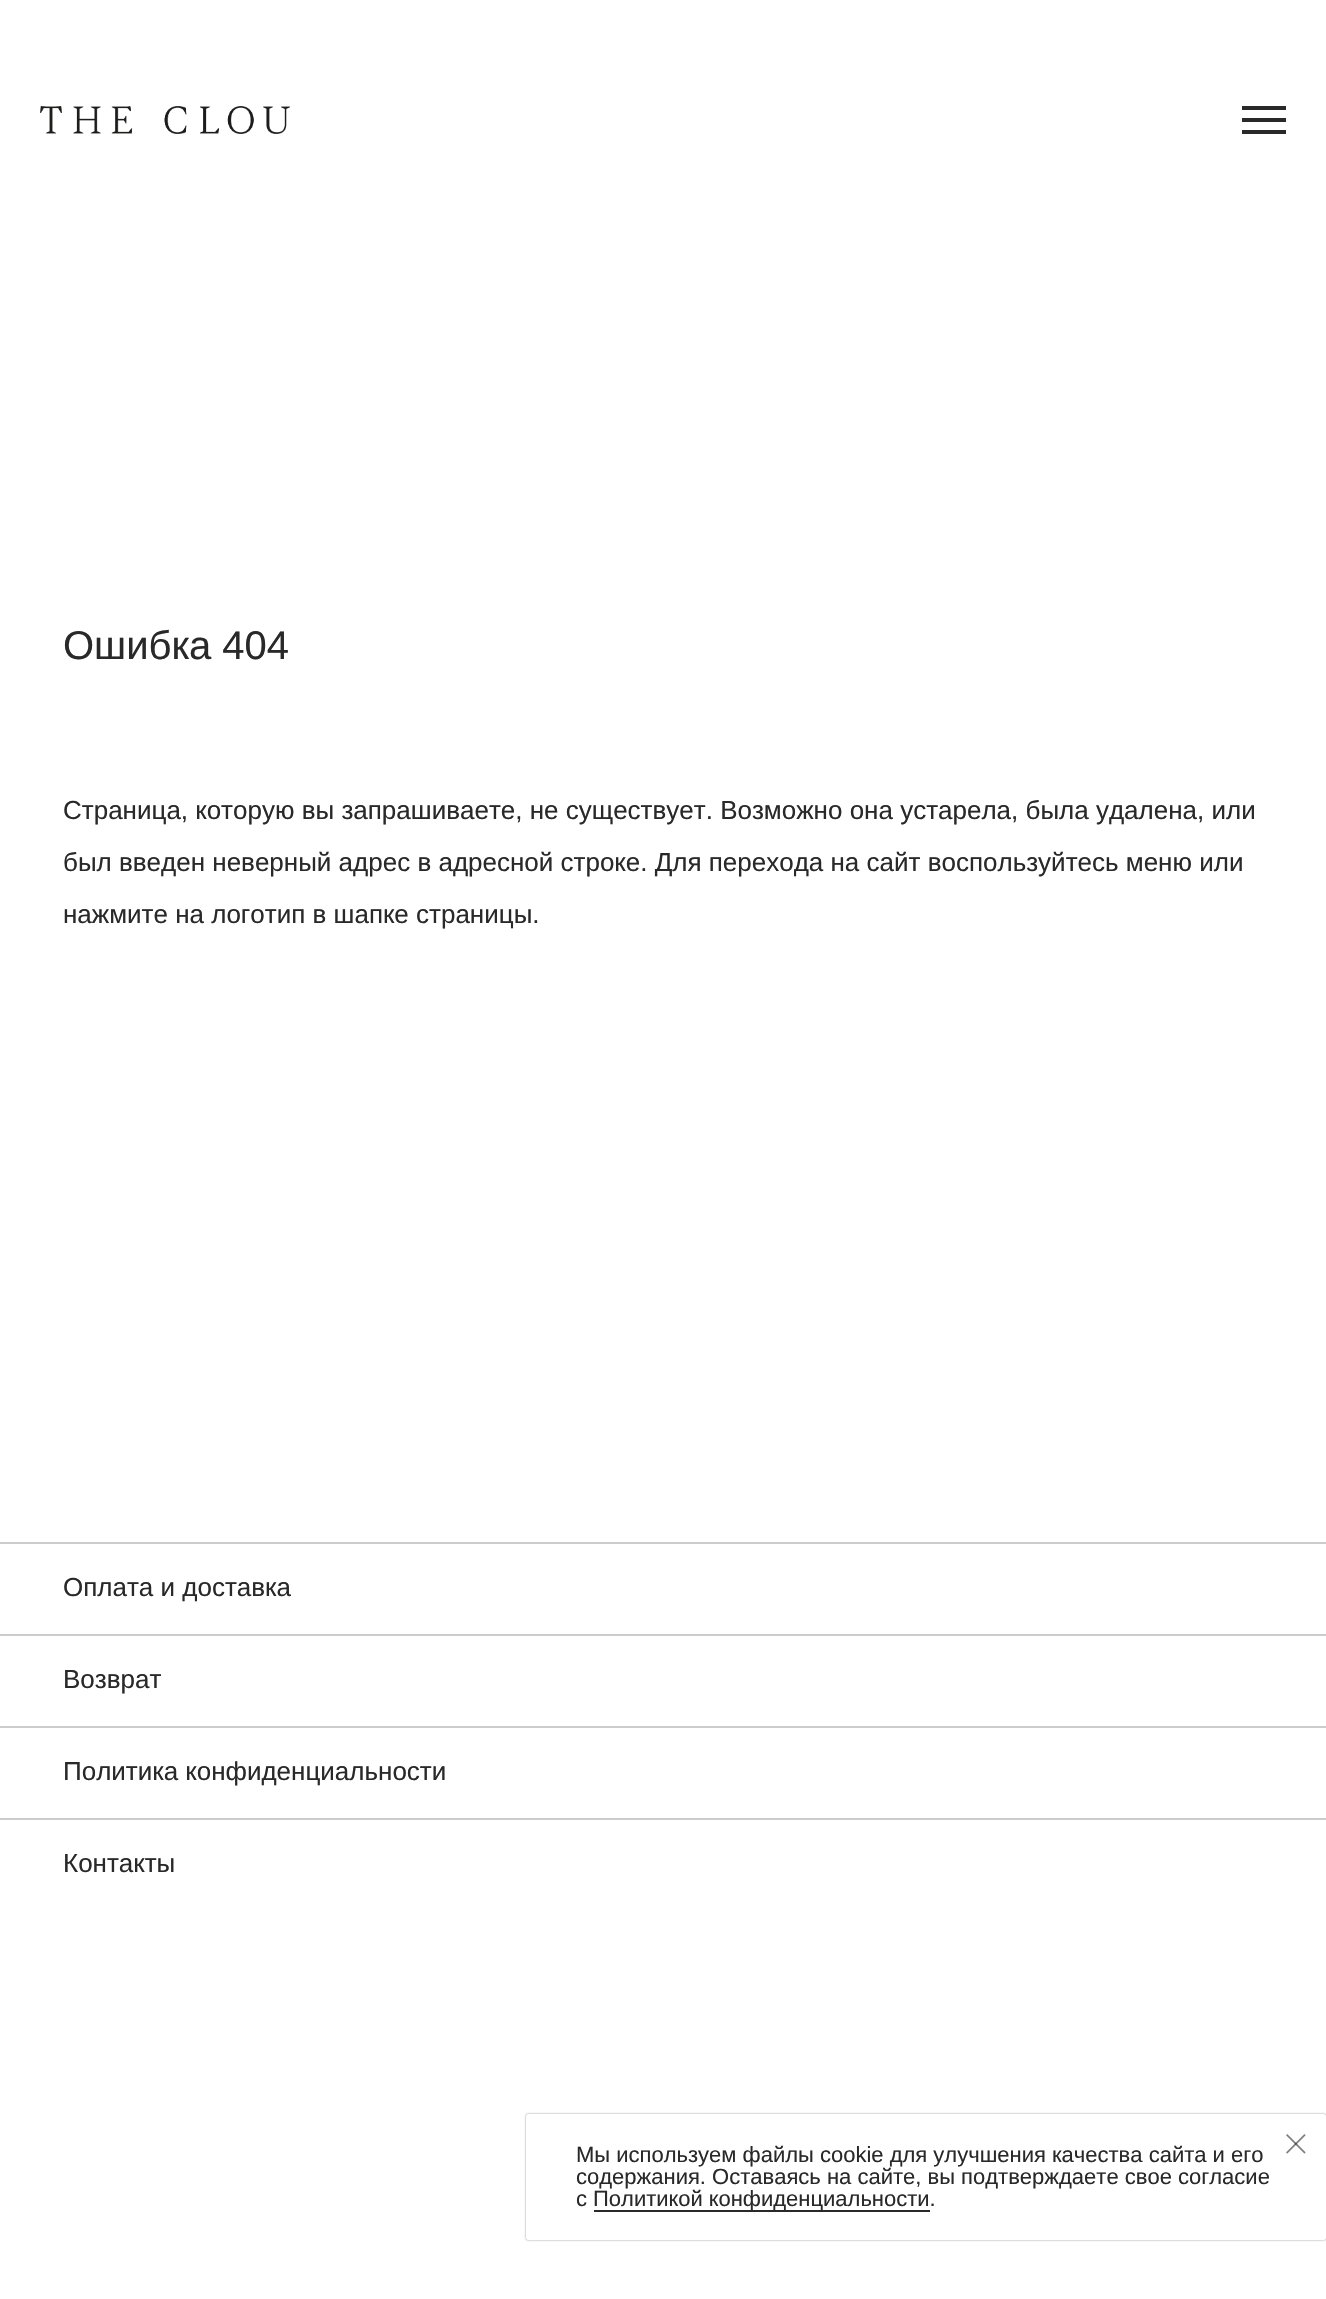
void draw(SkCanvas* canvas) {
  SkPaint paint;
  paint.setAntiAlias(true);
  auto face = [&](const char* family, int weight, float size, bool italic = false) {
    SkFontStyle style(weight, SkFontStyle::kNormal_Width,
      italic ? SkFontStyle::kItalic_Slant : SkFontStyle::kUpright_Slant);
    SkFont result(fontMgr->matchFamilyStyle(family, style), size);
    result.setSubpixel(true);
    return result;
  };
  auto paste = [&](const char* path, float x, float y, float w, float h) {
    auto image = SkImages::DeferredFromEncodedData(SkData::MakeFromFileName(path));
    canvas->drawImageRect(image, SkRect::MakeXYWH(x, y, w, h), SkSamplingOptions());
  };
  canvas->clear(0xffffffff);
  paste("img/1.png", 40, 106, 250, 28);
  {
    const struct { float x, y, w, h; SkColor color; } items[] = {
      {1242, 106, 44, 4, 0xff292929},
      {1242, 118, 44, 4, 0xff292929},
      {1242, 130, 44, 4, 0xff292929},
      {0, 1542, 1326, 2, 0xffcccccc},
      {0, 1634, 1326, 2, 0xffcccccc},
      {0, 1726, 1326, 2, 0xffcccccc},
      {0, 1818, 1326, 2, 0xffcccccc},
    };
    for (auto [x, y, w, h, color] : items) {
      paint.setColor(color);
      canvas->drawRect(SkRect::MakeXYWH(x, y, w, h), paint);
    }
  }
  paint.setColor(0x80000000);
  paint.setMaskFilter(SkMaskFilter::MakeBlur(kNormal_SkBlurStyle, 1));
  canvas->drawRoundRect(SkRect::MakeXYWH(526, 2114, 800, 126), 2, 2, paint);
  paint.setMaskFilter(nullptr);
  paint.setColor(0xffffffff);
  canvas->drawRoundRect(SkRect::MakeXYWH(526, 2114, 800, 126), 2, 2, paint);
  paint.setColor(0xff292929);
  canvas->drawRect(SkRect::MakeXYWH(594, 2210, 336, 2), paint);
  paste("img/2.png", 1286, 2134, 20, 20);
  auto f0 = face("Arimo", 400, 40);
  canvas->drawString("Ошибка 404", 63, 659, f0, paint);
  auto f1 = face("Arimo", 400, 26);
  {
    const struct { const char* s; float x, y; } items[] = {
      {"Страница, которую вы запрашиваете, не существует. Возможно она устарела, была удалена, или", 63, 819},
      {"был введен неверный адрес в адресной строке. Для перехода на сайт воспользуйтесь меню или", 63, 871},
      {"нажмите на логотип в шапке страницы.", 63, 923},
      {"Оплата и доставка", 63, 1596},
      {"Возврат", 63, 1688},
      {"Политика конфиденциальности", 63, 1780},
      {"Контакты", 63, 1872},
    };
    for (auto [s, x, y] : items) {
      canvas->drawString(s, x, y, f1, paint);
    }
  }
  auto f2 = face("Arimo", 400, 22);
  {
    const struct { const char* s; float x, y; } items[] = {
      {"Мы используем файлы cookie для улучшения качества сайта и его", 576, 2162},
      {"содержания. Оставаясь на сайте, вы подтверждаете свое согласие", 576, 2184},
      {"с", 576, 2206},
      {"Политикой конфиденциальности.", 593, 2206},
    };
    for (auto [s, x, y] : items) {
      canvas->drawString(s, x, y, f2, paint);
    }
  }
}
